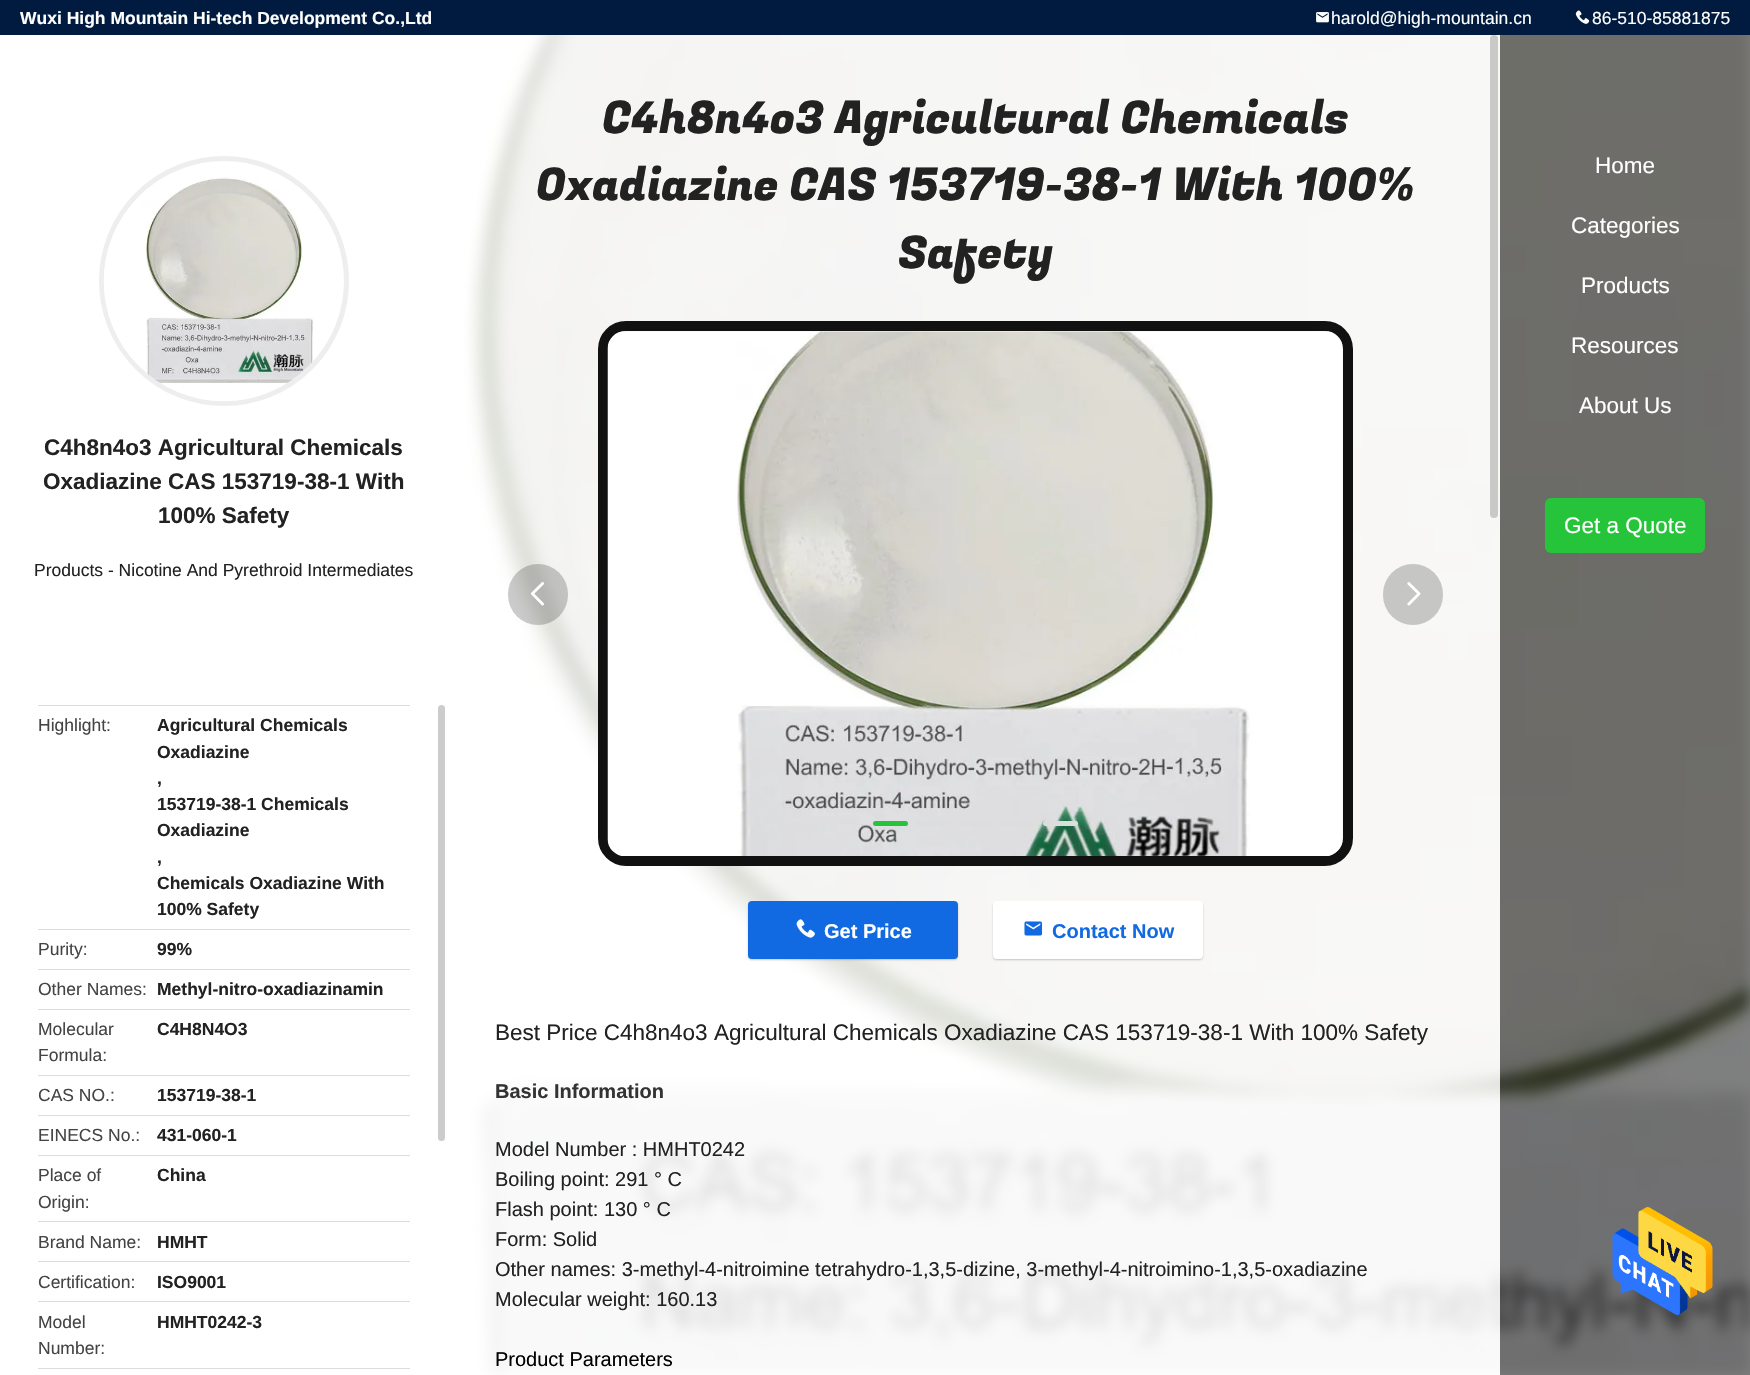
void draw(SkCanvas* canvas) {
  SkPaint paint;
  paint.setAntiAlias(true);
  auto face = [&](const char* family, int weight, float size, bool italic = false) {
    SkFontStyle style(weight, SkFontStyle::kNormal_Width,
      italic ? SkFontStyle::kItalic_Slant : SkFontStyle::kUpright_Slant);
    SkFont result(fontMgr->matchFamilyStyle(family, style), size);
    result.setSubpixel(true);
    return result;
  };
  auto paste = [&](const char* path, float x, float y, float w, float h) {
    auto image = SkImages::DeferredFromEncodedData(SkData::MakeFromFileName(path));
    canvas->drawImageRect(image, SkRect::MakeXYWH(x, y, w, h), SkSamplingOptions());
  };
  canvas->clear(0xffffffff);
  paint.setColor(0xff001b3f);
  canvas->drawRect(SkRect::MakeXYWH(0, 0, 1750, 35), paint);
  paste("img/1.png", 1316, 12, 13, 11);
  paste("img/2.png", 1575, 10, 15, 14);
  paste("img/3.png", 461, 35, 1289, 1340);
  paint.setColor(0xccffffff);
  canvas->drawRect(SkRect::MakeXYWH(461, 35, 1039, 1340), paint);
  paint.setColor(0xffc9c9c8);
  canvas->drawRoundRect(SkRect::MakeXYWH(1490, 35, 8, 483), 4, 4, paint);
  paint.setStroke(true);
  paint.setStrokeWidth(10);
  paint.setColor(0xff111111);
  canvas->drawRoundRect(SkRect::MakeXYWH(603, 326, 745, 535), 23, 23, paint);
  paste("img/4.png", 607, 331, 736, 525);
  paint.setStroke(false);
  paint.setColor(0x33000000);
  canvas->drawRoundRect(SkRect::MakeXYWH(508, 564, 60, 61), 30, 30, paint);
  paste("img/5.png", 531, 582, 13, 24);
  paint.setColor(0xffc6c6c4);
  canvas->drawRoundRect(SkRect::MakeXYWH(1383, 564, 60, 61), 30, 30, paint);
  paste("img/6.png", 1407, 582, 14, 24);
  paint.setColor(0xff26c43a);
  canvas->drawRoundRect(SkRect::MakeXYWH(873, 821, 35, 5), 2.5f, 2.5f, paint);
  paint.setColor(0xffdddddd);
  canvas->drawRoundRect(SkRect::MakeXYWH(915, 821, 35, 5), 2.5f, 2.5f, paint);
  canvas->drawRoundRect(SkRect::MakeXYWH(958, 821, 35, 5), 2.5f, 2.5f, paint);
  canvas->drawRoundRect(SkRect::MakeXYWH(1000, 821, 35, 5), 2.5f, 2.5f, paint);
  canvas->drawRoundRect(SkRect::MakeXYWH(1043, 821, 35, 5), 2.5f, 2.5f, paint);
  paint.setColor(0x33000000);
  paint.setMaskFilter(SkMaskFilter::MakeBlur(kNormal_SkBlurStyle, 1));
  canvas->drawRoundRect(SkRect::MakeXYWH(748, 903, 210, 57), 4, 4, paint);
  paint.setMaskFilter(nullptr);
  paint.setColor(0xff126ae2);
  canvas->drawRoundRect(SkRect::MakeXYWH(748, 901, 210, 58), 4, 4, paint);
  paste("img/7.png", 796, 919, 19, 19);
  paint.setColor(0x33000000);
  paint.setMaskFilter(SkMaskFilter::MakeBlur(kNormal_SkBlurStyle, 1));
  canvas->drawRoundRect(SkRect::MakeXYWH(993, 903, 210, 57), 4, 4, paint);
  paint.setMaskFilter(nullptr);
  paint.setColor(0xffffffff);
  canvas->drawRoundRect(SkRect::MakeXYWH(993, 901, 210, 58), 4, 4, paint);
  paste("img/8.png", 1024, 921, 19, 15);
  paint.setColor(0x80000000);
  canvas->drawRect(SkRect::MakeXYWH(1500, 35, 250, 1340), paint);
  paint.setColor(0xff26c43a);
  canvas->drawRoundRect(SkRect::MakeXYWH(1545, 498, 160, 55), 6, 6, paint);
  paint.setStroke(true);
  paint.setStrokeWidth(5);
  paint.setColor(0xffeeeeee);
  canvas->drawCircle(224, 281, 122.5f, paint);
  paste("img/9.png", 103, 177, 211, 225);
  paint.setStroke(false);
  {
    const struct { float x, y, w, h; SkColor color; } items[] = {
      {38, 705, 372, 1, 0xffdddddd},
      {38, 929, 372, 1, 0xffdddddd},
      {38, 969, 372, 1, 0xffdddddd},
      {38, 1009, 372, 1, 0xffdddddd},
      {38, 1075, 372, 1, 0xffdddddd},
      {38, 1115, 372, 1, 0xffdddddd},
      {38, 1155, 372, 1, 0xffdddddd},
      {38, 1221, 372, 1, 0xffdddddd},
      {38, 1261, 372, 1, 0xffdddddd},
      {38, 1301, 372, 1, 0xffdddddd},
      {38, 1368, 372, 1, 0xffdddddd},
    };
    for (auto [x, y, w, h, color] : items) {
      paint.setColor(color);
      canvas->drawRect(SkRect::MakeXYWH(x, y, w, h), paint);
    }
  }
  paint.setColor(0xffcccccc);
  canvas->drawRoundRect(SkRect::MakeXYWH(438, 705, 7, 436), 3.5f, 3.5f, paint);
  paste("img/10.png", 1612, 1207, 101, 109);
  auto f0 = face("Liberation Sans", 700, 17.5f);
  paint.setColor(0xffffffff);
  canvas->drawString("Wuxi High Mountain Hi-tech Development Co.,Ltd", 20, 24, f0, paint);
  auto f1 = face("Liberation Sans", 400, 17.5f);
  canvas->drawString("harold@high-mountain.cn", 1331, 24, f1, paint);
  canvas->drawString("86-510-85881875", 1592, 24, f1, paint);
  auto f2 = face("Fugaz One", 400, 45);
  paint.setColor(0xff222222);
  {
    const struct { const char* s; float x, y; } items[] = {
      {"C4h8n4o3 Agricultural Chemicals", 602, 133},
      {"Oxadiazine CAS 153719-38-1 With 100%", 536, 200},
      {"Safety", 898, 268},
    };
    for (auto [s, x, y] : items) {
      canvas->drawString(s, x, y, f2, paint);
    }
  }
  auto f3 = face("Liberation Sans", 700, 20);
  paint.setColor(0xffffffff);
  canvas->drawString("Get Price", 824, 938, f3, paint);
  paint.setColor(0xff126ae2);
  canvas->drawString("Contact Now", 1052, 938, f3, paint);
  auto f4 = face("Liberation Sans", 400, 22.5f);
  paint.setColor(0xff222222);
  canvas->drawString("Best Price C4h8n4o3 Agricultural Chemicals Oxadiazine CAS 153719-38-1 With 100% Safety", 495, 1040, f4, paint);
  paint.setColor(0xff333333);
  canvas->drawString("Basic Information", 495, 1098, f3, paint);
  auto f5 = face("Liberation Sans", 400, 20);
  paint.setColor(0xff222222);
  {
    const struct { const char* s; float x, y; } items[] = {
      {"Model Number : HMHT0242", 495, 1156},
      {"Boiling point: 291 ° C", 495, 1186},
      {"Flash point: 130 ° C", 495, 1216},
      {"Form: Solid", 495, 1246},
      {"Other names: 3-methyl-4-nitroimine tetrahydro-1,3,5-dizine, 3-methyl-4-nitroimino-1,3,5-oxadiazine", 495, 1276},
      {"Molecular weight: 160.13", 495, 1306},
    };
    for (auto [s, x, y] : items) {
      canvas->drawString(s, x, y, f5, paint);
    }
  }
  paint.setColor(0xff000000);
  canvas->drawString("Product Parameters", 495, 1366, f5, paint);
  paint.setColor(0xffffffff);
  {
    const struct { const char* s; float x, y; } items[] = {
      {"Home", 1595, 173},
      {"Categories", 1571, 233},
      {"Products", 1581, 293},
      {"Resources", 1571, 353},
      {"About Us", 1579, 413},
      {"Get a Quote", 1564, 533},
    };
    for (auto [s, x, y] : items) {
      canvas->drawString(s, x, y, f4, paint);
    }
  }
  auto f6 = face("Liberation Sans", 700, 22.5f);
  paint.setColor(0xff222222);
  {
    const struct { const char* s; float x, y; } items[] = {
      {"C4h8n4o3 Agricultural Chemicals", 44, 455},
      {"Oxadiazine CAS 153719-38-1 With", 43, 489},
      {"100% Safety", 158, 523},
    };
    for (auto [s, x, y] : items) {
      canvas->drawString(s, x, y, f6, paint);
    }
  }
  canvas->drawString("Products - Nicotine And Pyrethroid Intermediates", 34, 576, f1, paint);
  paint.setColor(0xff444444);
  canvas->drawString("Highlight:", 38, 731, f1, paint);
  paint.setColor(0xff222222);
  {
    const struct { const char* s; float x, y; } items[] = {
      {"Agricultural Chemicals", 157, 731},
      {"Oxadiazine", 157, 758},
      {",", 157, 784},
      {"153719-38-1 Chemicals", 157, 810},
      {"Oxadiazine", 157, 836},
      {",", 157, 863},
      {"Chemicals Oxadiazine With", 157, 889},
      {"100% Safety", 157, 915},
    };
    for (auto [s, x, y] : items) {
      canvas->drawString(s, x, y, f0, paint);
    }
  }
  paint.setColor(0xff444444);
  canvas->drawString("Purity:", 38, 955, f1, paint);
  paint.setColor(0xff222222);
  canvas->drawString("99%", 157, 955, f0, paint);
  paint.setColor(0xff444444);
  canvas->drawString("Other Names:", 38, 995, f1, paint);
  paint.setColor(0xff222222);
  canvas->drawString("Methyl-nitro-oxadiazinamin", 157, 995, f0, paint);
  paint.setColor(0xff444444);
  canvas->drawString("Molecular", 38, 1035, f1, paint);
  canvas->drawString("Formula:", 38, 1061, f1, paint);
  paint.setColor(0xff222222);
  canvas->drawString("C4H8N4O3", 157, 1035, f0, paint);
  paint.setColor(0xff444444);
  canvas->drawString("CAS NO.:", 38, 1101, f1, paint);
  paint.setColor(0xff222222);
  canvas->drawString("153719-38-1", 157, 1101, f0, paint);
  paint.setColor(0xff444444);
  canvas->drawString("EINECS No.:", 38, 1141, f1, paint);
  paint.setColor(0xff222222);
  canvas->drawString("431-060-1", 157, 1141, f0, paint);
  paint.setColor(0xff444444);
  canvas->drawString("Place of", 38, 1181, f1, paint);
  canvas->drawString("Origin:", 38, 1208, f1, paint);
  paint.setColor(0xff222222);
  canvas->drawString("China", 157, 1181, f0, paint);
  paint.setColor(0xff444444);
  canvas->drawString("Brand Name:", 38, 1248, f1, paint);
  paint.setColor(0xff222222);
  canvas->drawString("HMHT", 157, 1248, f0, paint);
  paint.setColor(0xff444444);
  canvas->drawString("Certification:", 38, 1288, f1, paint);
  paint.setColor(0xff222222);
  canvas->drawString("ISO9001", 157, 1288, f0, paint);
  paint.setColor(0xff444444);
  canvas->drawString("Model", 38, 1328, f1, paint);
  canvas->drawString("Number:", 38, 1354, f1, paint);
  paint.setColor(0xff222222);
  canvas->drawString("HMHT0242-3", 157, 1328, f0, paint);
}
